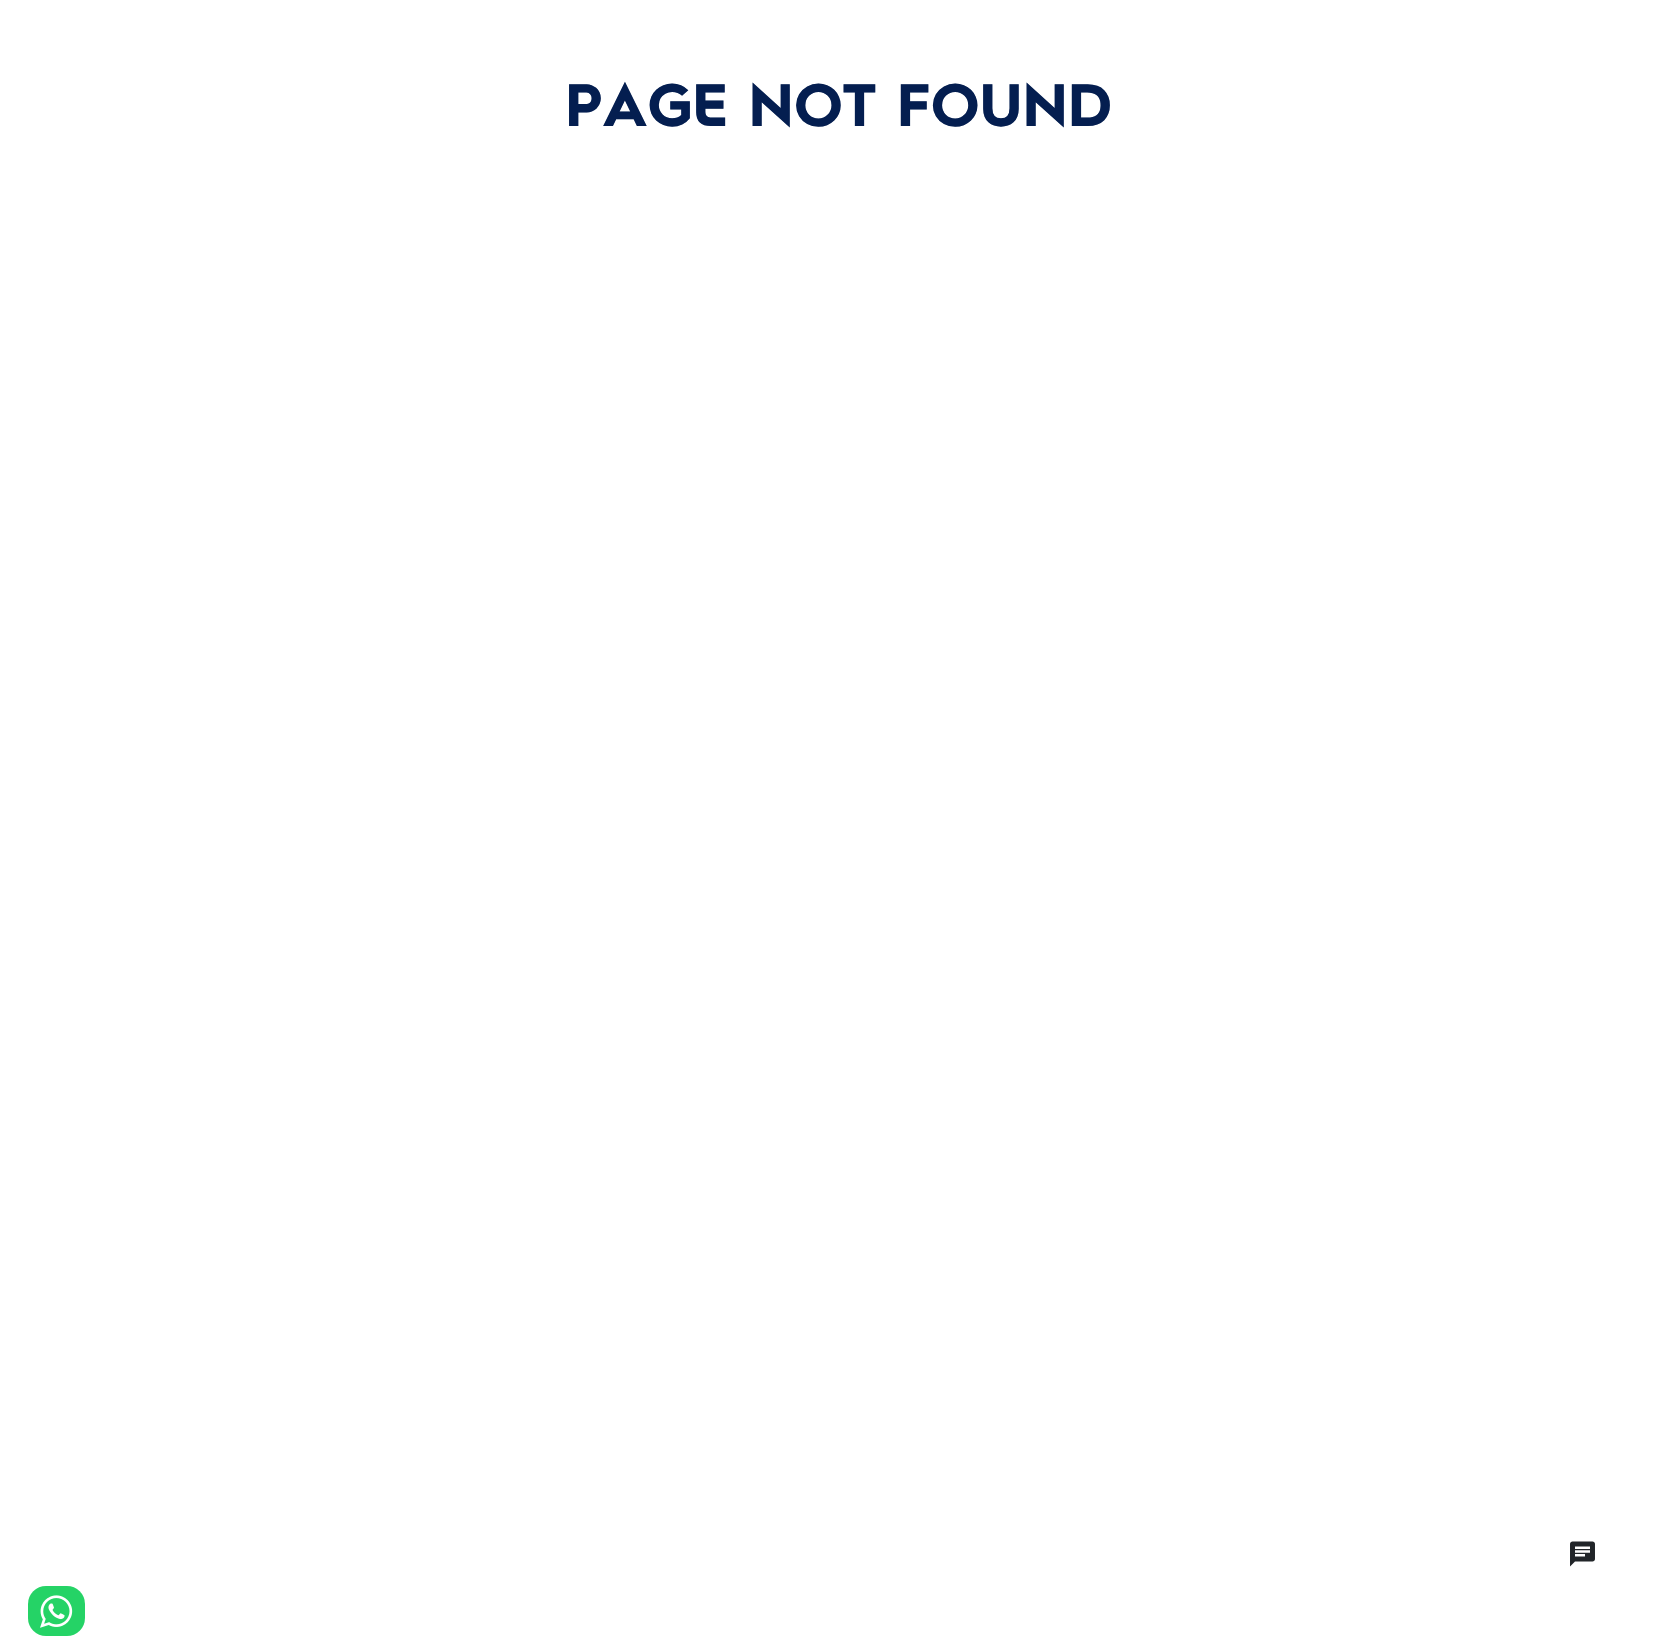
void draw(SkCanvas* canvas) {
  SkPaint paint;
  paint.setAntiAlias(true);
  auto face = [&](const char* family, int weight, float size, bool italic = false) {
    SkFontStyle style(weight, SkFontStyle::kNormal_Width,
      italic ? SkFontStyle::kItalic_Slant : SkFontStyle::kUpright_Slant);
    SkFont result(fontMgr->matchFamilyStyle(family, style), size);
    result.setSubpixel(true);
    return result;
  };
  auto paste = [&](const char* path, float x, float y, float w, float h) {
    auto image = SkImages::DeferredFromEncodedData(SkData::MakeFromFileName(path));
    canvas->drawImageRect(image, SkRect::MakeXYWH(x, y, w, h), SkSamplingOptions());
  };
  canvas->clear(0xffffffff);
  paint.setColor(0xff25d366);
  canvas->drawRoundRect(SkRect::MakeXYWH(28, 1586, 57, 50), 18, 18, paint);
  paste("img/1.png", 40, 1595, 33, 33);
  paste("img/2.png", 1570, 1541, 25, 26);
  auto f0 = face("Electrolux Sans", 700, 60);
  paint.setColor(0xff041e50);
  canvas->drawString("PAGE NOT FOUND", 565, 126, f0, paint);
}
